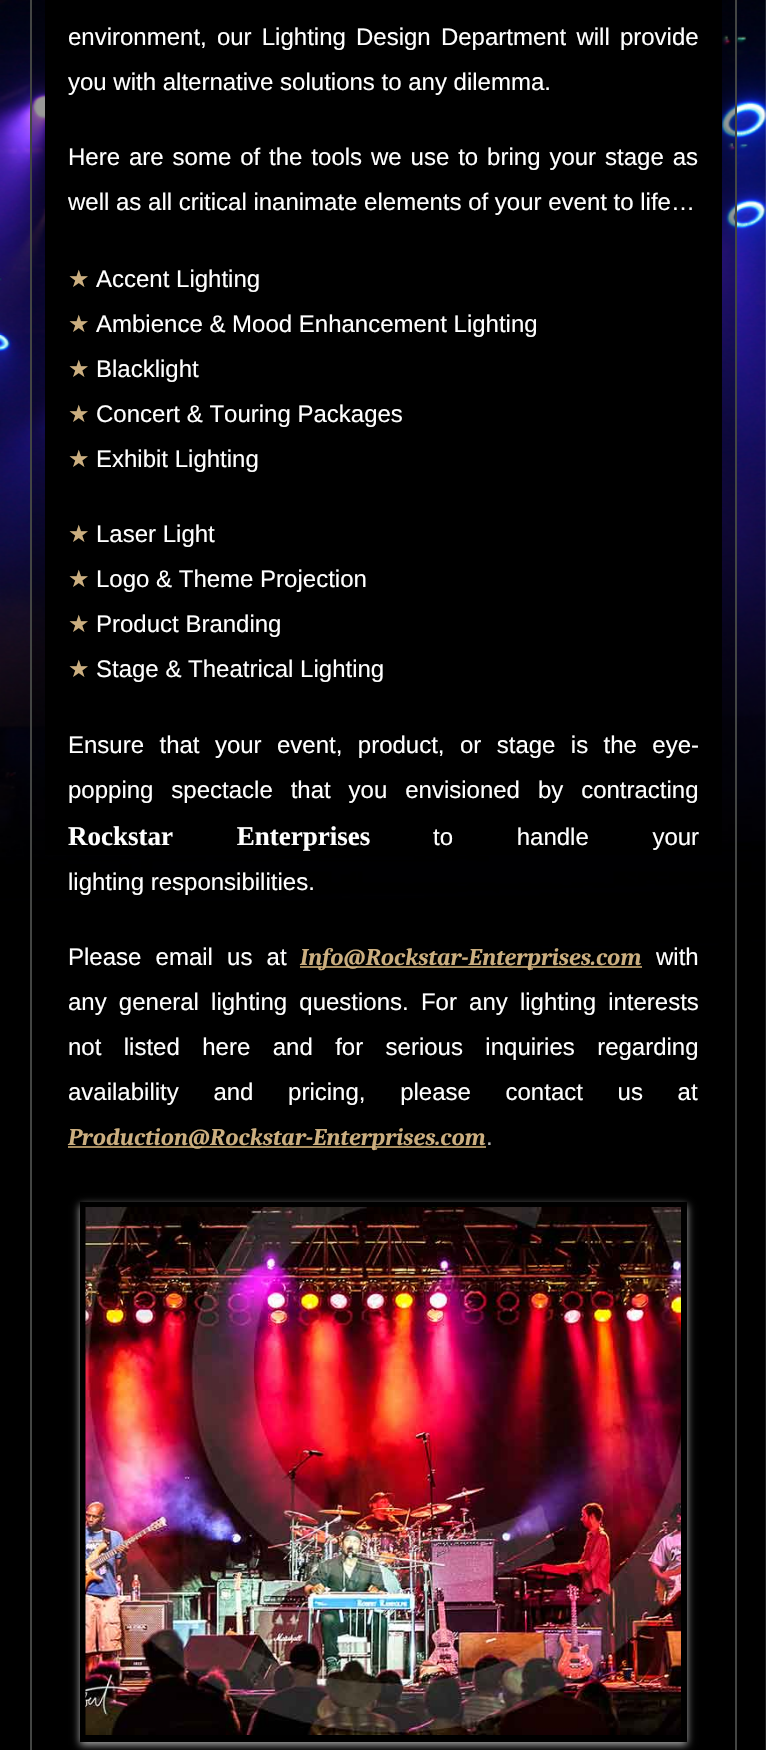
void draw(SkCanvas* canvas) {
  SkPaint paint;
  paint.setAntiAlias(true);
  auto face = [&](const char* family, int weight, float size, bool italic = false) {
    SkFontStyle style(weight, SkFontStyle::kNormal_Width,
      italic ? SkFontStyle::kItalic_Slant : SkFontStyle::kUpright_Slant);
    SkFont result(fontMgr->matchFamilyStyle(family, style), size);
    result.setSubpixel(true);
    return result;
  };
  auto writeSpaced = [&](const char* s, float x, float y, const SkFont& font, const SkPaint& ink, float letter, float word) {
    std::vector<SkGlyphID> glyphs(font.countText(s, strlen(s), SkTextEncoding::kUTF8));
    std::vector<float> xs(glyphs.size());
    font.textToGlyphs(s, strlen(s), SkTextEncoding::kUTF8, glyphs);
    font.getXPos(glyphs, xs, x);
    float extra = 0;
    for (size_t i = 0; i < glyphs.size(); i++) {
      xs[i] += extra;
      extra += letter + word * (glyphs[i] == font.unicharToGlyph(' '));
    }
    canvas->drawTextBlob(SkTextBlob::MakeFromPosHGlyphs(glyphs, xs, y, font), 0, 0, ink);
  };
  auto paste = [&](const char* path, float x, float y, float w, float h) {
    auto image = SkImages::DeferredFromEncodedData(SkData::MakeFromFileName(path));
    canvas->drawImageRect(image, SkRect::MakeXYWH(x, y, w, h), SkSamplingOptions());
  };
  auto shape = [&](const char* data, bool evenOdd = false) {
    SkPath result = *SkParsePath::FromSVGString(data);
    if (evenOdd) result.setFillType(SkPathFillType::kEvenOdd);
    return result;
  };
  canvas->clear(0xffffffff);
  paste("img/1.png", 0, 0, 766, 1750);
  paint.setStroke(true);
  paint.setStrokeWidth(2);
  paint.setColor(0xff434543);
  canvas->drawRect(SkRect::MakeXYWH(31, -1, 705, 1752), paint);
  paint.setStroke(false);
  {
    const struct { float x, y, w, h; SkColor color; } items[] = {
      {45, 0, 677, 855, 0xff000000},
      {300, 966, 342, 2, 0xffa68b5e},
      {68, 1146, 418, 2, 0xffa68b5e},
    };
    for (auto [x, y, w, h, color] : items) {
      paint.setColor(color);
      canvas->drawRect(SkRect::MakeXYWH(x, y, w, h), paint);
    }
  }
  canvas->save();
  canvas->clipPath(shape("M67 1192H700V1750H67ZM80 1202H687V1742H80Z", true), true);
  paint.setColor(0xffaaaaaa);
  paint.setMaskFilter(SkMaskFilter::MakeBlur(kNormal_SkBlurStyle, 4));
  canvas->drawRect(SkRect::MakeXYWH(80, 1205, 607, 540), paint);
  paint.setMaskFilter(nullptr);
  canvas->restore();
  paste("img/2.png", 85, 1207, 596, 528);
  auto f0 = face("Liberation Sans", 400, 24);
  paint.setColor(0xffffffff);
  writeSpaced("environment, our Lighting Design Department will provide", 68, 45, f0, paint, 0, 3.5f);
  canvas->drawString("you with alternative solutions to any dilemma.", 68, 90, f0, paint);
  writeSpaced("Here are some of the tools we use to bring your stage as", 68, 165, f0, paint, 0, 2.25f);
  canvas->drawString("well as all critical inanimate elements of your event to life…", 68, 210, f0, paint);
  auto f1 = face("DejaVu Sans", 400, 24);
  paint.setColor(0xffcbae7f);
  canvas->drawString("★", 68, 287, f1, paint);
  paint.setColor(0xffffffff);
  canvas->drawString("Accent Lighting", 96, 287, f0, paint);
  paint.setColor(0xffcbae7f);
  canvas->drawString("★", 68, 332, f1, paint);
  paint.setColor(0xffffffff);
  canvas->drawString("Ambience & Mood Enhancement Lighting", 96, 332, f0, paint);
  paint.setColor(0xffcbae7f);
  canvas->drawString("★", 68, 377, f1, paint);
  paint.setColor(0xffffffff);
  canvas->drawString("Blacklight", 96, 377, f0, paint);
  paint.setColor(0xffcbae7f);
  canvas->drawString("★", 68, 422, f1, paint);
  paint.setColor(0xffffffff);
  canvas->drawString("Concert & Touring Packages", 96, 422, f0, paint);
  paint.setColor(0xffcbae7f);
  canvas->drawString("★", 68, 467, f1, paint);
  paint.setColor(0xffffffff);
  canvas->drawString("Exhibit Lighting", 96, 467, f0, paint);
  paint.setColor(0xffcbae7f);
  canvas->drawString("★", 68, 542, f1, paint);
  paint.setColor(0xffffffff);
  canvas->drawString("Laser Light", 96, 542, f0, paint);
  paint.setColor(0xffcbae7f);
  canvas->drawString("★", 68, 587, f1, paint);
  paint.setColor(0xffffffff);
  canvas->drawString("Logo & Theme Projection", 96, 587, f0, paint);
  paint.setColor(0xffcbae7f);
  canvas->drawString("★", 68, 632, f1, paint);
  paint.setColor(0xffffffff);
  canvas->drawString("Product Branding", 96, 632, f0, paint);
  paint.setColor(0xffcbae7f);
  canvas->drawString("★", 68, 677, f1, paint);
  paint.setColor(0xffffffff);
  canvas->drawString("Stage & Theatrical Lighting", 96, 677, f0, paint);
  writeSpaced("Ensure that your event, product, or stage is the eye-", 68, 753, f0, paint, 0, 8.75f);
  writeSpaced("popping spectacle that you envisioned by contracting", 68, 798, f0, paint, 0, 11.25f);
  auto f2 = face("Liberation Serif", 700, 27);
  writeSpaced("Rockstar Enterprises", 68, 845, f2, paint, 0, 57);
  writeSpaced("to handle your", 433, 845, f0, paint, 0, 57);
  canvas->drawString("lighting responsibilities.", 68, 890, f0, paint);
  writeSpaced("Please email us at", 68, 965, f0, paint, 0, 7.5f);
  auto f3 = face("Caladea", 700, 24, true);
  paint.setColor(0xffcbae7f);
  canvas->drawString("Info@Rockstar-Enterprises.com", 300, 965, f3, paint);
  paint.setColor(0xffffffff);
  canvas->drawString("with", 656, 965, f0, paint);
  writeSpaced("any general lighting questions. For any lighting interests", 68, 1010, f0, paint, 0, 5.5f);
  writeSpaced("not listed here and for serious inquiries regarding", 68, 1055, f0, paint, 0, 15.75f);
  writeSpaced("availability and pricing, please contact us at", 68, 1100, f0, paint, 0, 28);
  paint.setColor(0xffcbae7f);
  canvas->drawString("Production@Rockstar-Enterprises.com", 68, 1145, f3, paint);
  paint.setColor(0xffb6b6b6);
  canvas->drawString(".", 486, 1145, f0, paint);
}
